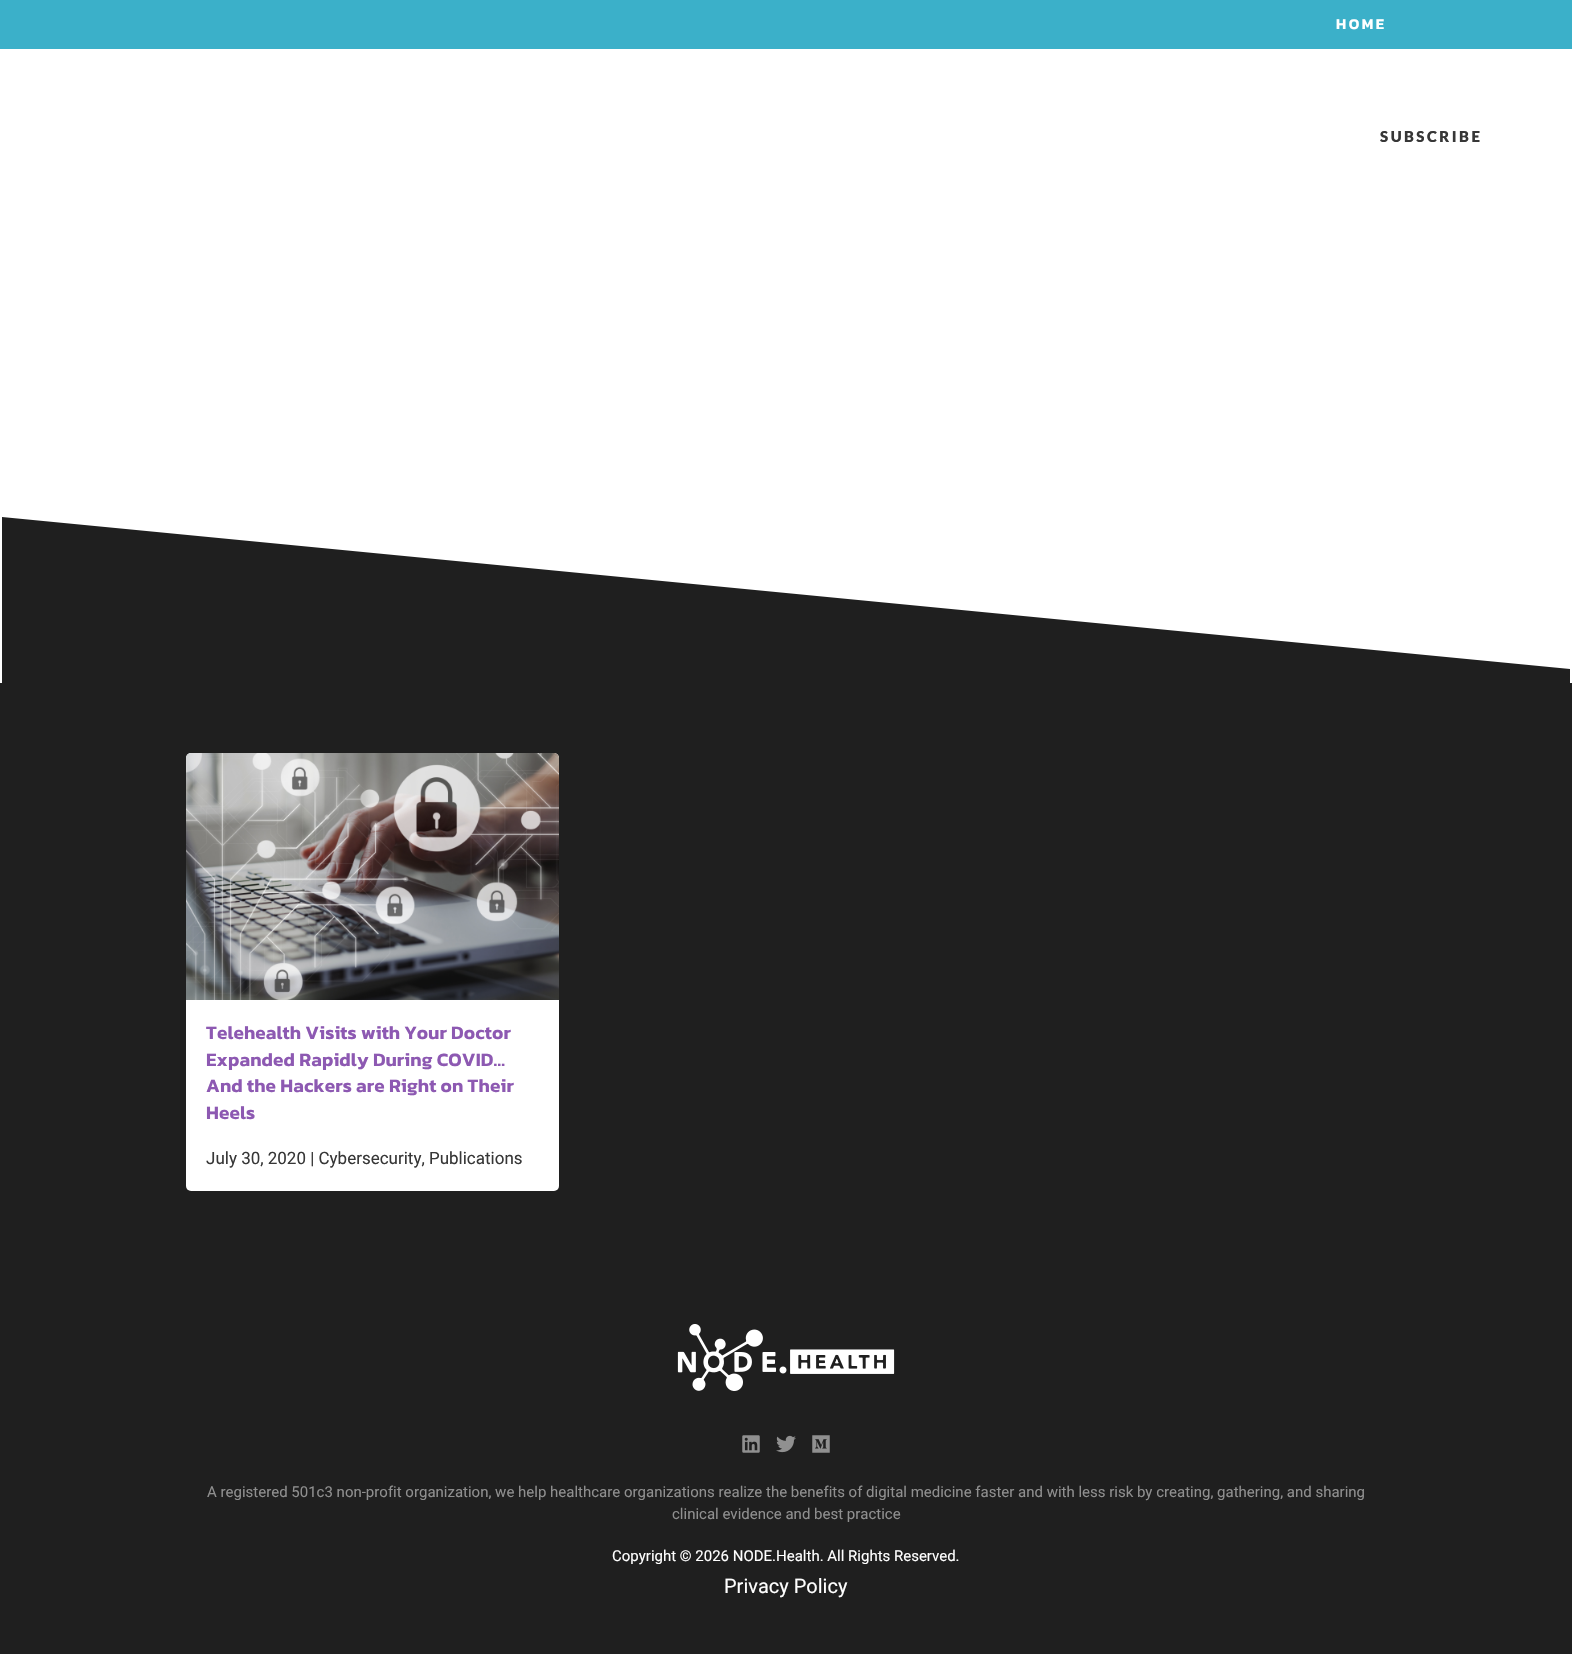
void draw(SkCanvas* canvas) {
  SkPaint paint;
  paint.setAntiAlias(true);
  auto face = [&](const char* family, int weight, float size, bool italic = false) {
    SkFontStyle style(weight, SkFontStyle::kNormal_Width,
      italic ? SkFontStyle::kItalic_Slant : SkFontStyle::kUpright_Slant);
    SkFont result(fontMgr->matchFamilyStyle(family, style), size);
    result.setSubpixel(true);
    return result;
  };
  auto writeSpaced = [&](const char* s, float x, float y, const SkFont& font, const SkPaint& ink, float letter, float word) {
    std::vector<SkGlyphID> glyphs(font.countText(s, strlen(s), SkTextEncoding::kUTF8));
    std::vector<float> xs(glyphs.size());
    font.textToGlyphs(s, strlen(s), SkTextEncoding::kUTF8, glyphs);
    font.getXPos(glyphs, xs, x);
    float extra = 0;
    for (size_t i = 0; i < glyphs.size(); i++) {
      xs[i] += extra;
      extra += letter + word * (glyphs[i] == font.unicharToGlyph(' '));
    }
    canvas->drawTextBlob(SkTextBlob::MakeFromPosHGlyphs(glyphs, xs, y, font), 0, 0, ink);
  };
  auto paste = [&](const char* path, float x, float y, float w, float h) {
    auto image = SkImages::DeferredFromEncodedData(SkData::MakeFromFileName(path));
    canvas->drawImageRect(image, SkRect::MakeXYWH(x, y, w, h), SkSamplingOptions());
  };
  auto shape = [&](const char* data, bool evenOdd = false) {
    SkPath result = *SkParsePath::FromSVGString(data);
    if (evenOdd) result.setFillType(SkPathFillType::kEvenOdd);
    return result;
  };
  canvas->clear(0xffffffff);
  paint.setColor(0xff3bb0c9);
  canvas->drawRect(SkRect::MakeXYWH(0, 0, 1572, 49), paint);
  canvas->save();
  canvas->clipRect(SkRect::MakeXYWH(0, 517, 1572, 166));
  paint.setColor(0xff1f1f1f);
  canvas->drawPath(shape("M2 517L1570 669V684H2Z"), paint);
  canvas->restore();
  canvas->drawRect(SkRect::MakeXYWH(0, 683, 1572, 971), paint);
  paint.setColor(0xffffffff);
  canvas->drawRoundRect(SkRect::MakeXYWH(186, 753, 373, 438), 5, 5, paint);
  paste("img/1.png", 186, 753, 373, 247);
  paste("img/2.png", 677, 1324, 218, 67);
  paste("img/3.png", 742, 1435, 18, 18);
  paste("img/4.png", 776, 1435, 20, 18);
  paste("img/5.png", 812, 1435, 18, 18);
  auto f0 = face("Kanit", 600, 15);
  writeSpaced("HOME", 1336, 29, f0, paint, 2.5f, 0);
  auto f1 = face("Lato", 900, 15);
  paint.setColor(0xff373737);
  writeSpaced("SUBSCRIBE", 1380, 142, f1, paint, 2.5f, 0);
  auto f2 = face("Kanit", 600, 19);
  paint.setColor(0xff8d59b2);
  {
    const struct { const char* s; float x, y; } items[] = {
      {"Telehealth Visits with Your Doctor", 206, 1039},
      {"Expanded Rapidly During COVID…", 206, 1066},
      {"And the Hackers are Right on Their", 206, 1092},
      {"Heels", 206, 1119},
    };
    for (auto [s, x, y] : items) {
      writeSpaced(s, x, y, f2, paint, 0.1f, 0);
    }
  }
  auto f3 = face("Roboto", 400, 17);
  paint.setColor(0xff373737);
  canvas->drawString("July 30, 2020 | Cybersecurity, Publications", 206, 1164, f3, paint);
  auto f4 = face("Roboto", 400, 15);
  paint.setColor(0xff8f8f8f);
  canvas->drawString("A registered 501c3 non-profit organization, we help healthcare organizations realize the benefits of digital medicine faster and with less risk by creating, gathering, and sharing", 207, 1497, f4, paint);
  canvas->drawString("clinical evidence and best practice", 672, 1519, f4, paint);
  paint.setColor(0xffffffff);
  canvas->drawString("Copyright © 2026 NODE.Health. All Rights Reserved.", 612, 1561, f4, paint);
  auto f5 = face("Roboto", 400, 20);
  canvas->drawString("Privacy Policy", 724, 1593, f5, paint);
}
